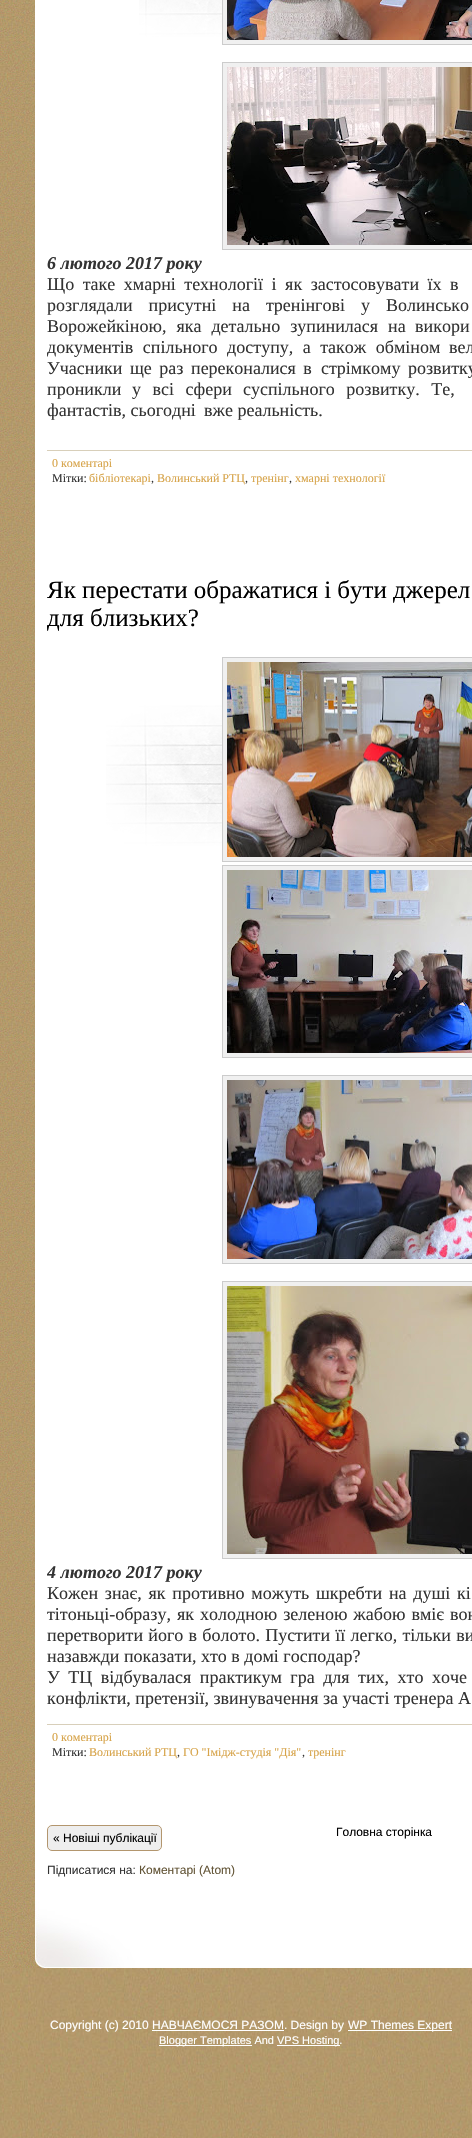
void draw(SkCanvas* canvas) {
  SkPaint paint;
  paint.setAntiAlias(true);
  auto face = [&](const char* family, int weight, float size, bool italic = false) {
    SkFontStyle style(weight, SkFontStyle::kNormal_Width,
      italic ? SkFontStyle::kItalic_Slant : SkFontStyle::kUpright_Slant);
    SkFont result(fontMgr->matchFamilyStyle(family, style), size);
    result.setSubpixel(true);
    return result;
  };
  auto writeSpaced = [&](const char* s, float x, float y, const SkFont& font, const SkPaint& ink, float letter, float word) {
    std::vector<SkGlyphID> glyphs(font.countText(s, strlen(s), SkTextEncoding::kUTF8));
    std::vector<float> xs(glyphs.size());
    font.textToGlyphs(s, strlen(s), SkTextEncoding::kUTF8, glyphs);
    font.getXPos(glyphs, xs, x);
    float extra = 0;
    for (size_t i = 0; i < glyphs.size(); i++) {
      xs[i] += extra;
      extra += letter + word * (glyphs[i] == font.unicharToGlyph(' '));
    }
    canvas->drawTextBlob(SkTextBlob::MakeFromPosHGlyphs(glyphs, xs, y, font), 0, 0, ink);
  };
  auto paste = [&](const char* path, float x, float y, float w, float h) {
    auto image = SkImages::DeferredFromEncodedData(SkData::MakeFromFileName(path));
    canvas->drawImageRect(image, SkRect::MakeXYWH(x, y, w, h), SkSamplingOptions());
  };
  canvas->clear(0xffffffff);
  paste("img/1.png", 0, 0, 35, 1968);
  paste("img/2.png", 139, 0, 83, 37);
  paint.setColor(0xfff0f0f0);
  canvas->drawRect(SkRect::MakeXYWH(222.5f, -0.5f, 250, 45), paint);
  paint.setStroke(true);
  paint.setStrokeWidth(1);
  paint.setColor(0xffcccccc);
  canvas->drawRect(SkRect::MakeXYWH(222.5f, -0.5f, 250, 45), paint);
  paste("img/3.png", 227, 0, 245, 40);
  paint.setStroke(false);
  paint.setColor(0xfff0f0f0);
  canvas->drawRect(SkRect::MakeXYWH(222.5f, 62.5f, 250, 187), paint);
  paint.setStroke(true);
  paint.setColor(0xffcccccc);
  canvas->drawRect(SkRect::MakeXYWH(222.5f, 62.5f, 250, 187), paint);
  paste("img/4.png", 227, 67, 245, 178);
  paint.setStroke(false);
  paint.setColor(0xffd8cfba);
  canvas->drawRect(SkRect::MakeXYWH(47, 450, 425, 1), paint);
  paste("img/5.png", 106, 705, 116, 141);
  paint.setColor(0xfff0f0f0);
  canvas->drawRect(SkRect::MakeXYWH(222.5f, 657.5f, 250, 204), paint);
  paint.setStroke(true);
  paint.setColor(0xffcccccc);
  canvas->drawRect(SkRect::MakeXYWH(222.5f, 657.5f, 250, 204), paint);
  paste("img/6.png", 227, 662, 245, 195);
  paint.setStroke(false);
  paint.setColor(0xfff0f0f0);
  canvas->drawRect(SkRect::MakeXYWH(222.5f, 865.5f, 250, 192), paint);
  paint.setStroke(true);
  paint.setColor(0xffcccccc);
  canvas->drawRect(SkRect::MakeXYWH(222.5f, 865.5f, 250, 192), paint);
  paste("img/7.png", 227, 870, 245, 183);
  paint.setStroke(false);
  paint.setColor(0xfff0f0f0);
  canvas->drawRect(SkRect::MakeXYWH(222.5f, 1075.5f, 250, 188), paint);
  paint.setStroke(true);
  paint.setColor(0xffcccccc);
  canvas->drawRect(SkRect::MakeXYWH(222.5f, 1075.5f, 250, 188), paint);
  paste("img/8.png", 227, 1080, 245, 179);
  paint.setStroke(false);
  paint.setColor(0xfff0f0f0);
  canvas->drawRect(SkRect::MakeXYWH(222.5f, 1281.5f, 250, 277), paint);
  paint.setStroke(true);
  paint.setColor(0xffcccccc);
  canvas->drawRect(SkRect::MakeXYWH(222.5f, 1281.5f, 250, 277), paint);
  paste("img/9.png", 227, 1286, 245, 268);
  paint.setStroke(false);
  paint.setColor(0xffd8cfba);
  canvas->drawRect(SkRect::MakeXYWH(47, 1724, 425, 1), paint);
  paint.setColor(0xffeeeeee);
  canvas->drawRoundRect(SkRect::MakeXYWH(47.5f, 1825.5f, 114, 25), 4.5f, 4.5f, paint);
  paint.setStroke(true);
  paint.setColor(0xffb3966e);
  canvas->drawRoundRect(SkRect::MakeXYWH(47.5f, 1825.5f, 114, 25), 4.5f, 4.5f, paint);
  paste("img/10.png", 15, 1901, 457, 67);
  paste("img/11.png", 0, 1968, 472, 170);
  paint.setStroke(false);
  {
    const struct { float x, y, w, h; SkColor color; } items[] = {
      {348, 2030, 104, 1, 0xffffffff},
      {152, 2030, 132, 1, 0xffffffff},
      {159, 2045, 93, 1, 0xffffffff},
      {277, 2045, 63, 1, 0xffffffff},
    };
    for (auto [x, y, w, h, color] : items) {
      paint.setColor(color);
      canvas->drawRect(SkRect::MakeXYWH(x, y, w, h), paint);
    }
  }
  auto f0 = face("Liberation Serif", 700, 18, true);
  paint.setColor(0xff333333);
  canvas->drawString("6 лютого 2017 року", 47, 269, f0, paint);
  auto f1 = face("Liberation Serif", 400, 18);
  writeSpaced("Що таке хмарні технології і як застосовувати їх в", 47, 290, f1, paint, 0, 4);
  writeSpaced("розглядали присутні на тренінгові у Волинсько", 47, 311, f1, paint, 0, 11.5f);
  writeSpaced("Ворожейкіною, яка детально зупинилася на", 47, 332, f1, paint, 0, 5.5f);
  writeSpaced("викори", 415, 332, f1, paint, 0, 5.5f);
  canvas->save();
  canvas->clipRect(SkRect::MakeXYWH(47, 0, 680, 435));
  writeSpaced("документів спільного доступу, а також обміном", 47, 353, f1, paint, 0, 5);
  canvas->restore();
  canvas->drawString("вел", 449, 353, f1, paint);
  writeSpaced("Учасники ще раз", 47, 374, f1, paint, 0, 3);
  writeSpaced("переконалися в", 191, 374, f1, paint, 0, 3);
  canvas->drawString("стрімкому", 321, 374, f1, paint);
  writeSpaced("розвитку", 408, 374, f1, paint, 0, 3);
  canvas->drawString("проникли", 47, 395, f1, paint);
  writeSpaced("у всі сфери", 132, 395, f1, paint, 0, 7);
  writeSpaced("суспільного розвитку. Те,", 243, 395, f1, paint, 0, 7);
  canvas->drawString("фантастів, сьогодні", 47, 416, f1, paint);
  canvas->drawString("вже реальність.", 204, 416, f1, paint);
  auto f2 = face("Liberation Serif", 400, 12);
  paint.setColor(0xffd7a44a);
  canvas->drawString("0 коментарі", 52, 467, f2, paint);
  paint.setColor(0xff333333);
  canvas->drawString("Мітки:", 52, 482, f2, paint);
  paint.setColor(0xffd7a44a);
  canvas->drawString("бібліотекарі", 89, 482, f2, paint);
  paint.setColor(0xff333333);
  canvas->drawString(",", 151, 482, f2, paint);
  paint.setColor(0xffd7a44a);
  canvas->drawString("Волинський РТЦ", 157, 482, f2, paint);
  paint.setColor(0xff333333);
  canvas->drawString(",", 245, 482, f2, paint);
  paint.setColor(0xffd7a44a);
  canvas->drawString("тренінг", 251, 482, f2, paint);
  paint.setColor(0xff333333);
  canvas->drawString(",", 289, 482, f2, paint);
  paint.setColor(0xffd7a44a);
  canvas->drawString("хмарні технології", 295, 482, f2, paint);
  auto f3 = face("Liberation Serif", 400, 25);
  paint.setColor(0xff000000);
  canvas->drawString("Як перестати ображатися і бути джерел", 47, 598, f3, paint);
  canvas->drawString("для близьких?", 47, 626, f3, paint);
  canvas->save();
  canvas->clipRect(SkRect::MakeXYWH(47, 657, 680, 1052));
  paint.setColor(0xff333333);
  canvas->drawString("4 лютого 2017 року", 47, 1578, f0, paint);
  canvas->restore();
  writeSpaced("Кожен знає, як противно можуть шкребти на душі кі", 47, 1599, f1, paint, 0, 2.25f);
  canvas->save();
  canvas->clipRect(SkRect::MakeXYWH(47, 657, 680, 1052));
  writeSpaced("тітоньці-образу, як холодною зеленою жабою вміє вон", 47, 1620, f1, paint, 0, 1.5f);
  canvas->restore();
  writeSpaced("перетворити його в болото. Пустити її легко, тільки ви", 47, 1641, f1, paint, 0, 0.75f);
  canvas->drawString("назавжди показати, хто в домі господар?", 47, 1662, f1, paint);
  writeSpaced("У ТЦ відбувалася практикум гра для тих, хто хоче", 47, 1683, f1, paint, 0, 4);
  canvas->drawString("конфлікти, претензії, звинувачення за участі тренера А", 47, 1704, f1, paint);
  paint.setColor(0xffd7a44a);
  canvas->drawString("0 коментарі", 52, 1741, f2, paint);
  paint.setColor(0xff333333);
  canvas->drawString("Мітки:", 52, 1756, f2, paint);
  paint.setColor(0xffd7a44a);
  canvas->drawString("Волинський РТЦ", 89, 1756, f2, paint);
  paint.setColor(0xff333333);
  canvas->drawString(",", 177, 1756, f2, paint);
  paint.setColor(0xffd7a44a);
  canvas->drawString("ГО \"Імідж-студія \"Дія\"", 183, 1756, f2, paint);
  paint.setColor(0xff333333);
  canvas->drawString(",", 302, 1756, f2, paint);
  paint.setColor(0xffd7a44a);
  canvas->drawString("тренінг", 308, 1756, f2, paint);
  auto f4 = face("Liberation Sans", 400, 12);
  paint.setColor(0xff000000);
  canvas->drawString("« Новіші публікації", 53, 1842, f4, paint);
  canvas->drawString("Головна сторінка", 336, 1836, f4, paint);
  paint.setColor(0xff333333);
  canvas->drawString("Підписатися на:", 47, 1874, f4, paint);
  paint.setColor(0xff635537);
  canvas->drawString("Коментарі (Atom)", 139, 1874, f4, paint);
  paint.setColor(0xffffffff);
  canvas->drawString("Copyright (c) 2010 НАВЧАЄМОСЯ РАЗОМ. Design by", 50, 2029, f4, paint);
  canvas->drawString("WP Themes Expert", 348, 2029, f4, paint);
  auto f5 = face("Liberation Sans", 400, 11);
  canvas->drawString("Blogger Templates And", 159, 2044, f5, paint);
  canvas->drawString("VPS Hosting.", 277, 2044, f5, paint);
}
